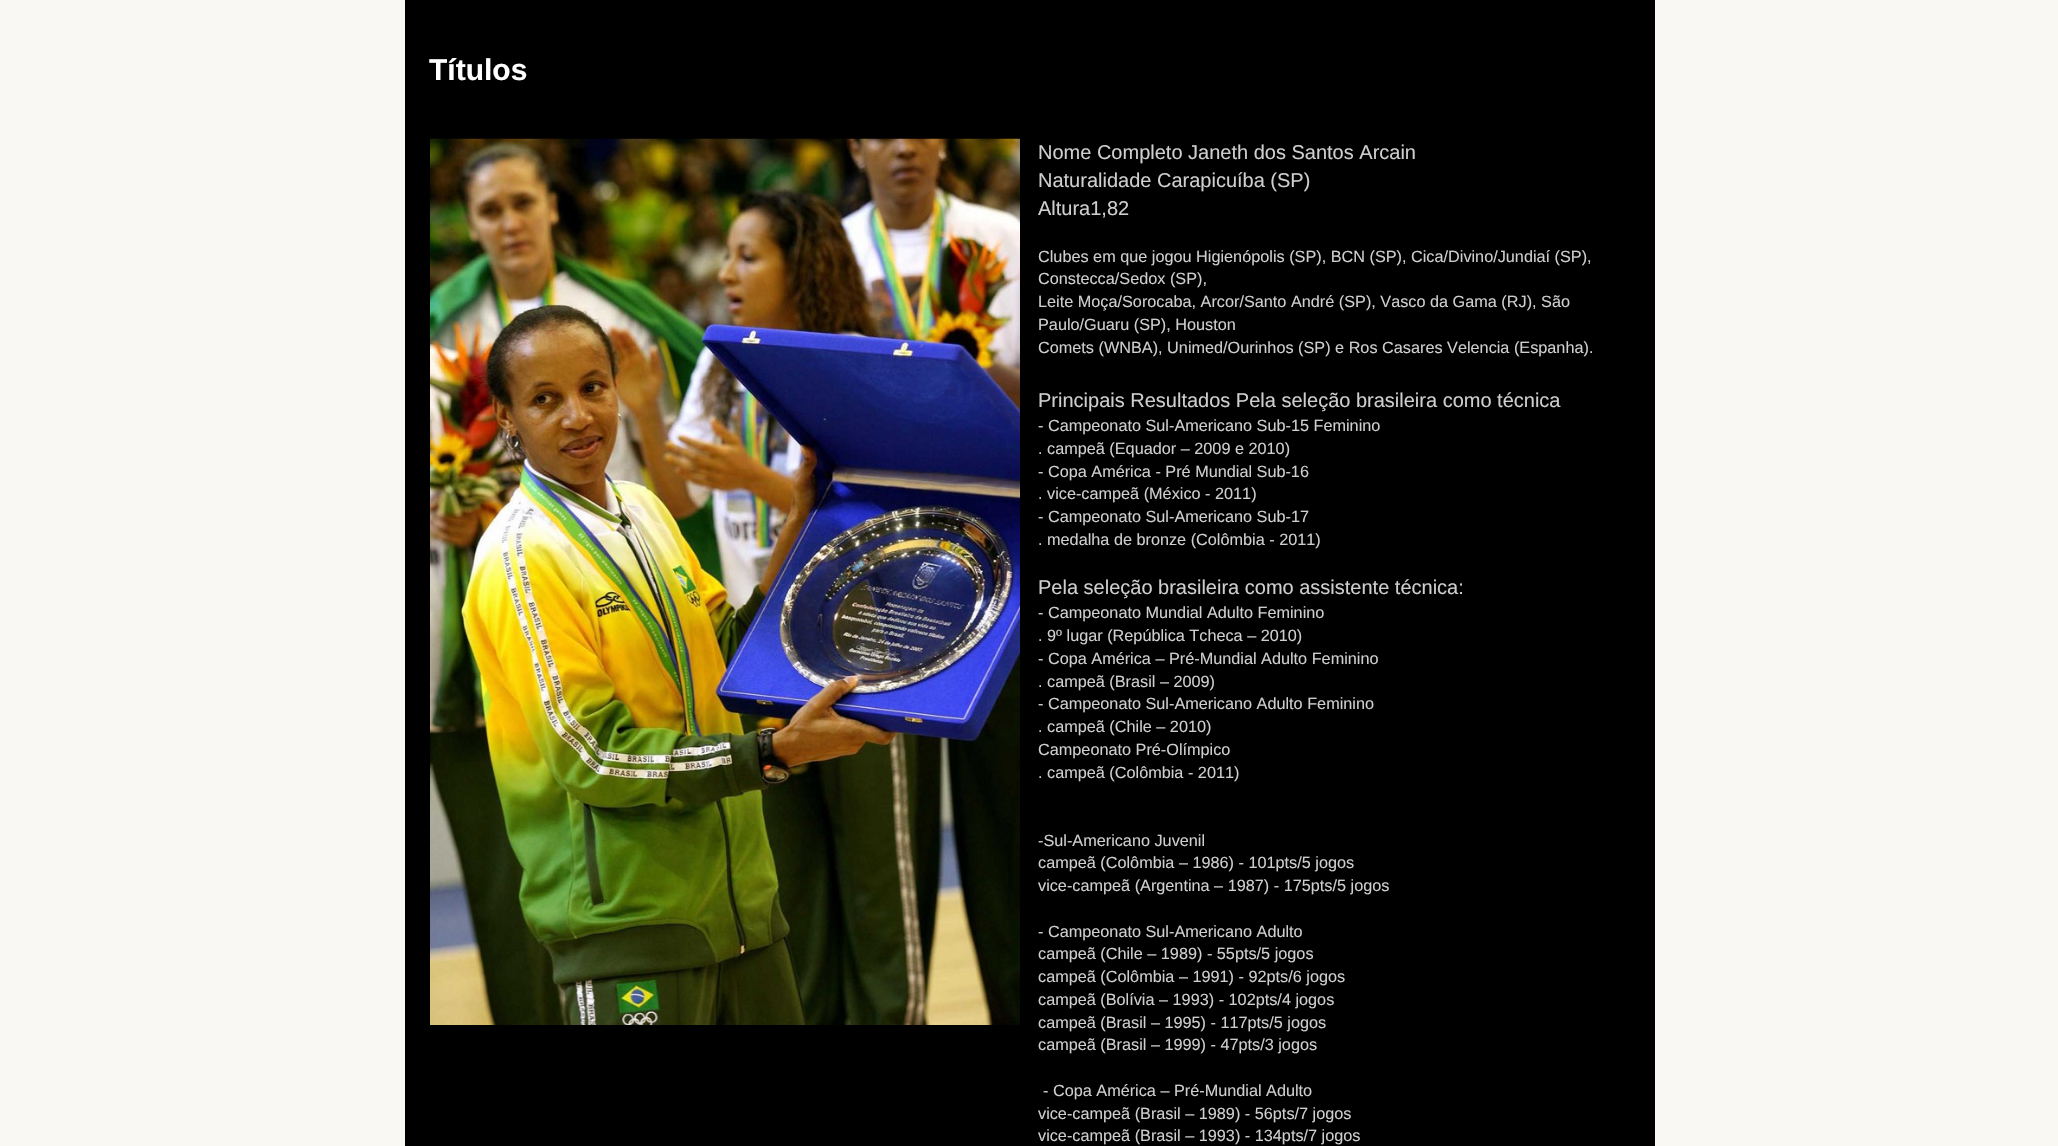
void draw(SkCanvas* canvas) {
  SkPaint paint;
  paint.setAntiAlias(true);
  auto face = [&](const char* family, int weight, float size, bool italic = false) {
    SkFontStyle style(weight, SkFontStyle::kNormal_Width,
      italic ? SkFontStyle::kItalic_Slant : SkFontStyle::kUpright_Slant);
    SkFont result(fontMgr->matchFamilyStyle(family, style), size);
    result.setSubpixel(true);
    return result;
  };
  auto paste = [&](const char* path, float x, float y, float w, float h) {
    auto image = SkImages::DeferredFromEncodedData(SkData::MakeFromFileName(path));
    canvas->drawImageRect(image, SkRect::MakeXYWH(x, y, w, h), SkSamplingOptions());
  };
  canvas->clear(0xfffaf8f2);
  paint.setColor(0xff000000);
  canvas->drawRect(SkRect::MakeXYWH(405, 0, 1250, 1146), paint);
  paste("img/1.png", 430, 138, 590, 887);
  auto f0 = face("Liberation Sans", 700, 30);
  paint.setColor(0xffffffff);
  canvas->drawString("Títulos", 429, 80, f0, paint);
  auto f1 = face("Liberation Sans", 400, 20);
  paint.setColor(0xffcecece);
  {
    const struct { const char* s; float x, y; } items[] = {
      {"Nome Completo Janeth dos Santos Arcain", 1038, 159},
      {"Naturalidade Carapicuíba (SP)", 1038, 187},
      {"Altura1,82", 1038, 215},
    };
    for (auto [s, x, y] : items) {
      canvas->drawString(s, x, y, f1, paint);
    }
  }
  auto f2 = face("Liberation Sans", 400, 16.25f);
  {
    const struct { const char* s; float x, y; } items[] = {
      {"Clubes em que jogou Higienópolis (SP), BCN (SP), Cica/Divino/Jundiaí (SP),", 1038, 262},
      {"Constecca/Sedox (SP),", 1038, 284},
      {"Leite Moça/Sorocaba, Arcor/Santo André (SP), Vasco da Gama (RJ), São", 1038, 307},
      {"Paulo/Guaru (SP), Houston", 1038, 330},
      {"Comets (WNBA), Unimed/Ourinhos (SP) e Ros Casares Velencia (Espanha).", 1038, 353},
    };
    for (auto [s, x, y] : items) {
      canvas->drawString(s, x, y, f2, paint);
    }
  }
  canvas->drawString("Principais Resultados Pela seleção brasileira como técnica", 1038, 407, f1, paint);
  {
    const struct { const char* s; float x, y; } items[] = {
      {"- Campeonato Sul-Americano Sub-15 Feminino", 1038, 431},
      {". campeã (Equador – 2009 e 2010)", 1038, 454},
      {"- Copa América - Pré Mundial Sub-16", 1038, 477},
      {". vice-campeã (México - 2011)", 1038, 499},
      {"- Campeonato Sul-Americano Sub-17", 1038, 522},
      {". medalha de bronze (Colômbia - 2011)", 1038, 545},
    };
    for (auto [s, x, y] : items) {
      canvas->drawString(s, x, y, f2, paint);
    }
  }
  canvas->drawString("Pela seleção brasileira como assistente técnica:", 1038, 594, f1, paint);
  {
    const struct { const char* s; float x, y; } items[] = {
      {"- Campeonato Mundial Adulto Feminino", 1038, 618},
      {". 9º lugar (República Tcheca – 2010)", 1038, 641},
      {"- Copa América – Pré-Mundial Adulto Feminino", 1038, 664},
      {". campeã (Brasil – 2009)", 1038, 687},
      {"- Campeonato Sul-Americano Adulto Feminino", 1038, 709},
      {". campeã (Chile – 2010)", 1038, 732},
      {"Campeonato Pré-Olímpico", 1038, 755},
      {". campeã (Colômbia - 2011)", 1038, 778},
      {"-Sul-Americano Juvenil", 1038, 846},
      {"campeã (Colômbia – 1986) - 101pts/5 jogos", 1038, 868},
      {"vice-campeã (Argentina – 1987) - 175pts/5 jogos", 1038, 891},
      {"- Campeonato Sul-Americano Adulto", 1038, 937},
      {"campeã (Chile – 1989) - 55pts/5 jogos", 1038, 959},
      {"campeã (Colômbia – 1991) - 92pts/6 jogos", 1038, 982},
      {"campeã (Bolívia – 1993) - 102pts/4 jogos", 1038, 1005},
      {"campeã (Brasil – 1995) - 117pts/5 jogos", 1038, 1028},
      {"campeã (Brasil – 1999) - 47pts/3 jogos", 1038, 1050},
      {"- Copa América – Pré-Mundial Adulto", 1043, 1096},
      {"vice-campeã (Brasil – 1989) - 56pts/7 jogos", 1038, 1119},
      {"vice-campeã (Brasil – 1993) - 134pts/7 jogos", 1038, 1141},
    };
    for (auto [s, x, y] : items) {
      canvas->drawString(s, x, y, f2, paint);
    }
  }
}
